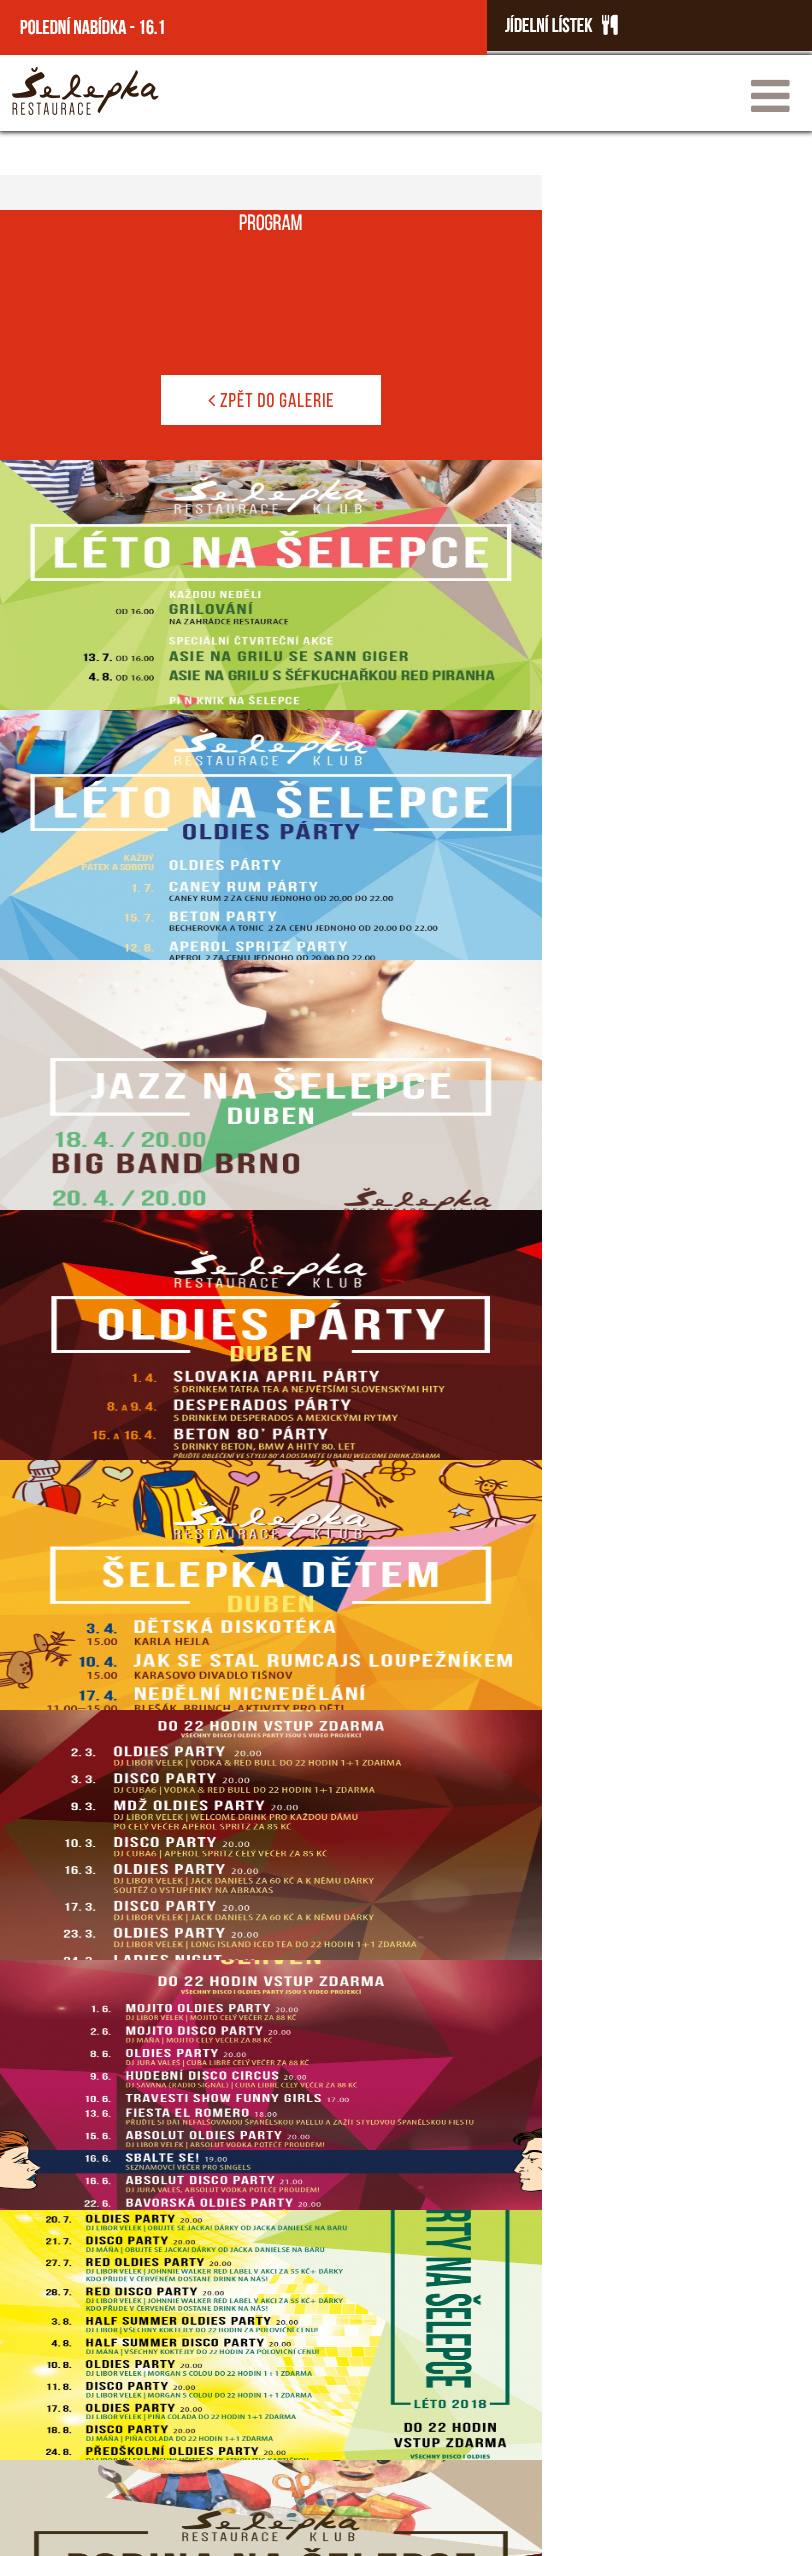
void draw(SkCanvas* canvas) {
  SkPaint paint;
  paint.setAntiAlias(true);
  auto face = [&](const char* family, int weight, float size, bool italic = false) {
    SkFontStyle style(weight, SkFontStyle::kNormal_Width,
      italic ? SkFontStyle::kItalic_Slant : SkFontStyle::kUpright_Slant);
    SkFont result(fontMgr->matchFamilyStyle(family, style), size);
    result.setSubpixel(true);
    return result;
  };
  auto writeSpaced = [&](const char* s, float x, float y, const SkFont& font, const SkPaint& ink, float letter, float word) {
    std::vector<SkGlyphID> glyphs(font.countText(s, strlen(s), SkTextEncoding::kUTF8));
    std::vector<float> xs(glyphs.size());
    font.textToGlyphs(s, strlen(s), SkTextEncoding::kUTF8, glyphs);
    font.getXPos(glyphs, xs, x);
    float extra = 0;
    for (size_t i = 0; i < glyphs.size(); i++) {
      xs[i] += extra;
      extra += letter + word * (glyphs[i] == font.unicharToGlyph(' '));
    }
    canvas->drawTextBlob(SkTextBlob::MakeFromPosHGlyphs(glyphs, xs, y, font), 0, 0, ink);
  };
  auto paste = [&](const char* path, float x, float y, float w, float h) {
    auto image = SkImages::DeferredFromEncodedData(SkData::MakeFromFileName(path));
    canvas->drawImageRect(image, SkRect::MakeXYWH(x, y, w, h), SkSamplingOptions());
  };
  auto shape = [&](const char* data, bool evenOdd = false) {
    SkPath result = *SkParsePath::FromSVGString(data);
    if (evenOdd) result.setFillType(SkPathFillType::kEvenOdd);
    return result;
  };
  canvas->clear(0xffffffff);
  canvas->save();
  canvas->clipPath(shape("M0 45H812V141H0ZM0 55H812V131H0Z", true), true);
  paint.setColor(0xff000000);
  paint.setMaskFilter(SkMaskFilter::MakeBlur(kNormal_SkBlurStyle, 2.5f));
  canvas->drawRect(SkRect::MakeXYWH(-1, 54, 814, 78), paint);
  paint.setMaskFilter(nullptr);
  canvas->restore();
  paint.setColor(0xffd93017);
  canvas->drawRect(SkRect::MakeXYWH(0, 0, 487, 55), paint);
  paint.setColor(0xff351c0c);
  canvas->drawRect(SkRect::MakeXYWH(487, 0, 325, 51), paint);
  paste("img/1.png", 602, 14, 16, 21);
  paste("img/2.png", 12, 67, 147, 48);
  paste("img/3.png", 751, 79, 39, 33);
  {
    const struct { float x, y, w, h; SkColor color; } items[] = {
      {0, 175, 542, 35, 0xfff4f4f4},
      {0, 210, 542, 250, 0xffd93017},
      {161, 375, 220, 50, 0xffffffff},
    };
    for (auto [x, y, w, h, color] : items) {
      paint.setColor(color);
      canvas->drawRect(SkRect::MakeXYWH(x, y, w, h), paint);
    }
  }
  paste("img/4.png", 208, 395, 7, 12);
  paste("img/5.png", 0, 460, 542, 250);
  paste("img/6.png", 0, 710, 542, 250);
  paste("img/7.png", 0, 960, 542, 250);
  paste("img/8.png", 0, 1210, 542, 250);
  paste("img/9.png", 0, 1460, 542, 250);
  paste("img/10.png", 0, 1710, 542, 250);
  paste("img/11.png", 0, 1960, 542, 250);
  paste("img/12.png", 0, 2210, 542, 250);
  paste("img/13.png", 0, 2460, 542, 96);
  auto f0 = face("Bebas Neue", 700, 20);
  canvas->drawString("Polední nabídka - 16.1", 20, 34, f0, paint);
  canvas->drawString("JÍDELNÍ LÍSTEK", 505, 32, f0, paint);
  auto f1 = face("Bebas Neue", 400, 22);
  canvas->drawString("Program", 239, 230, f1, paint);
  auto f2 = face("Bebas Neue", 400, 20);
  paint.setColor(0xffd93017);
  writeSpaced("Zpět do galerie", 220, 407, f2, paint, 1, 0);
}
